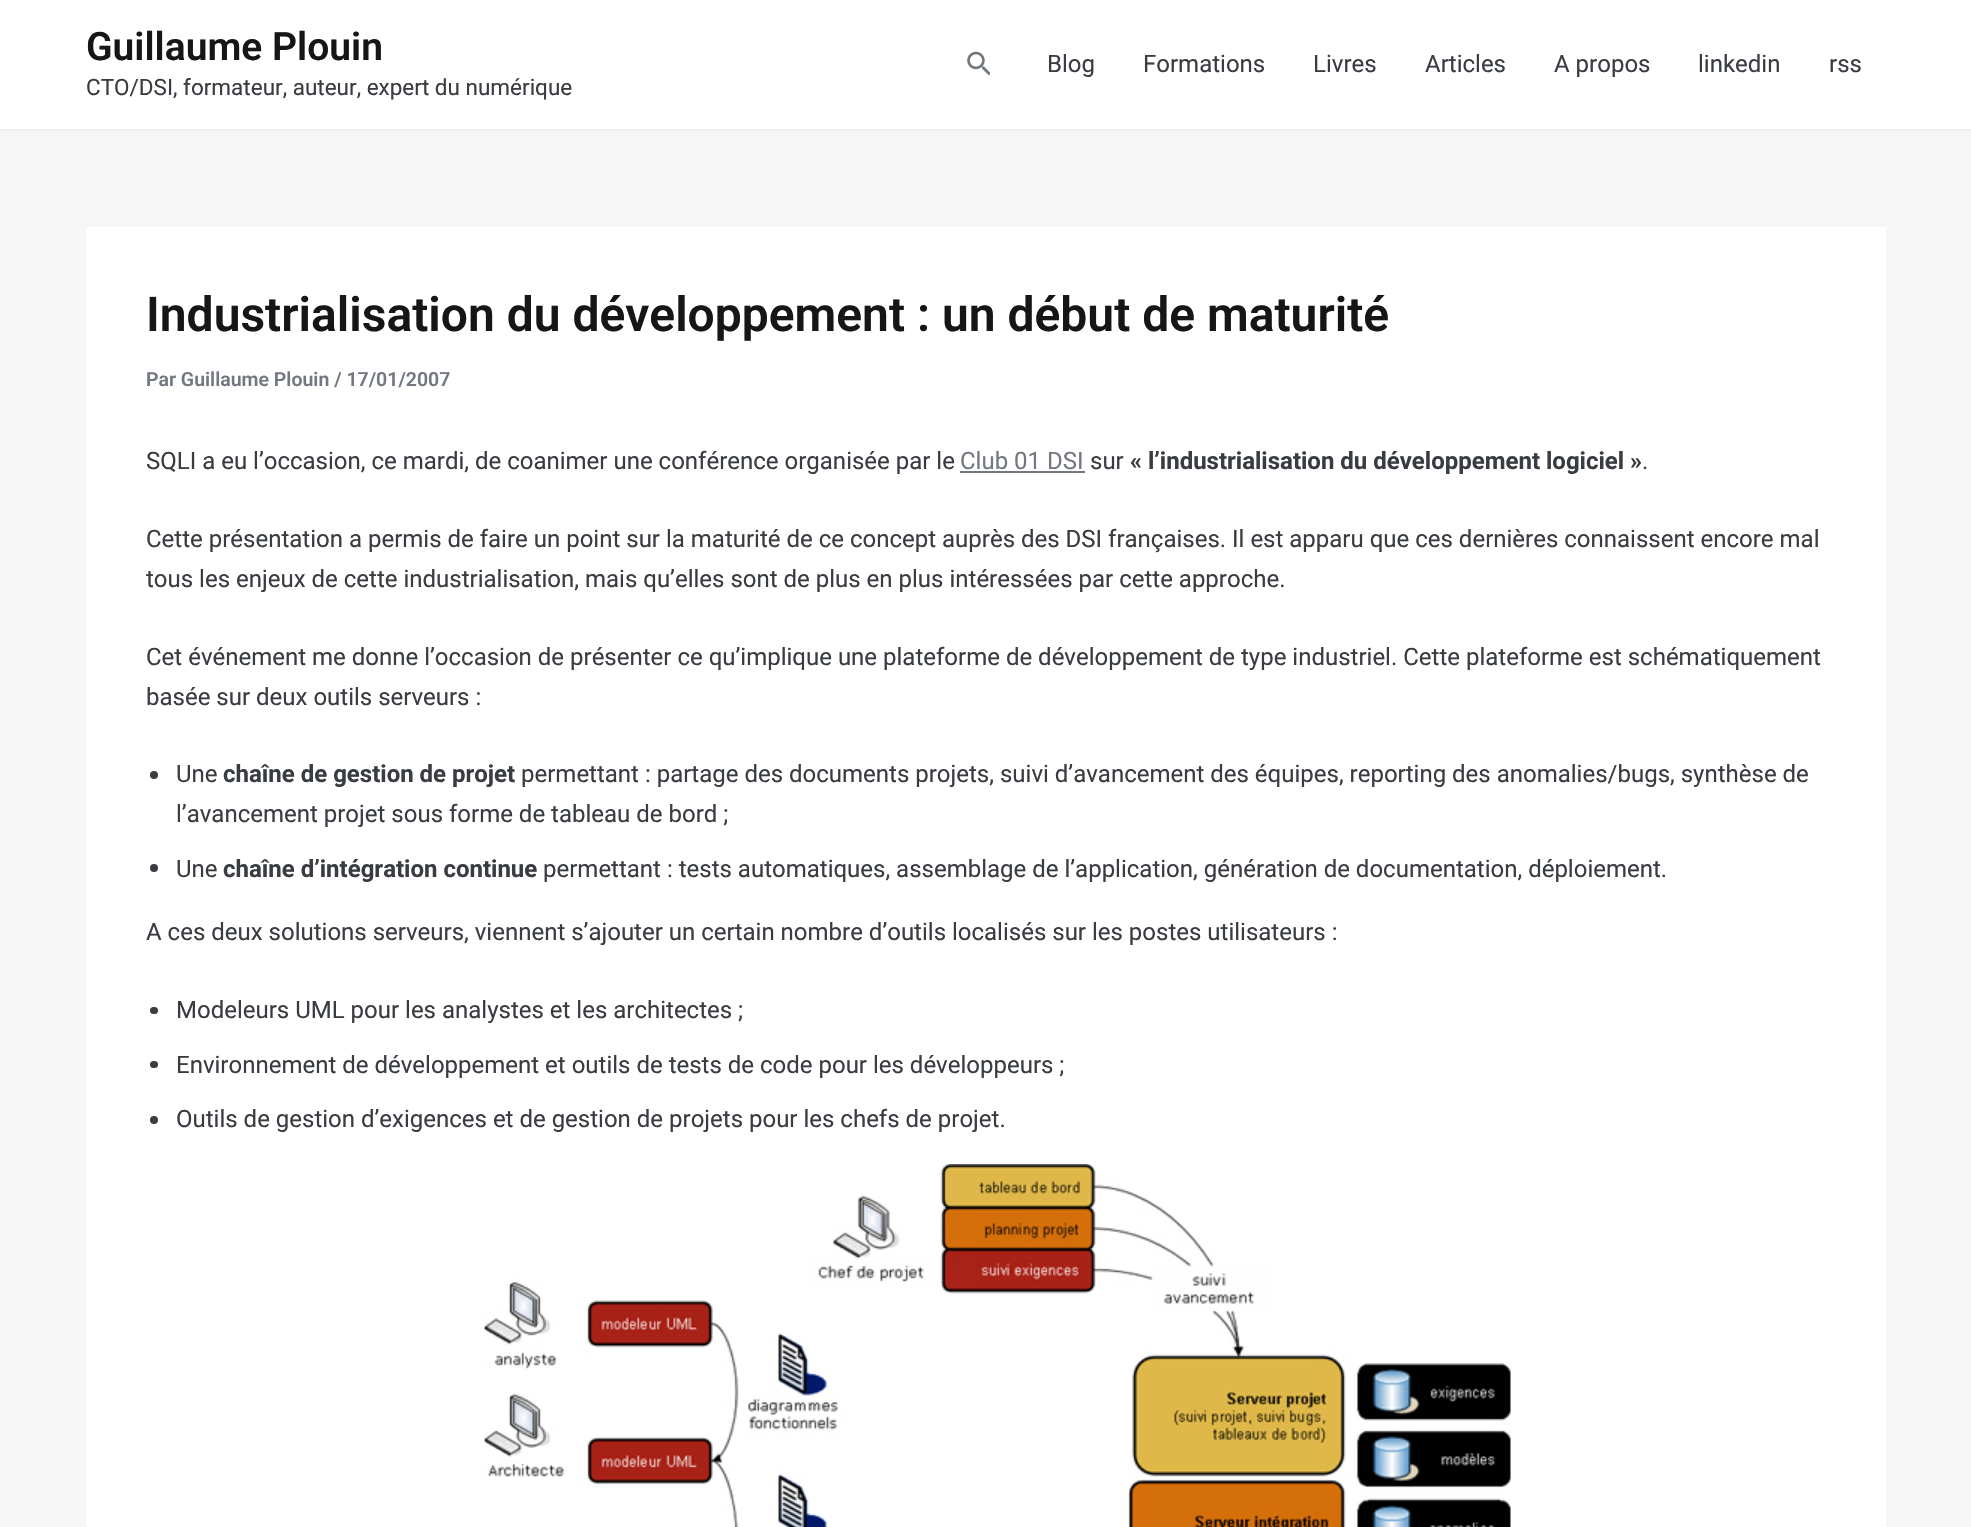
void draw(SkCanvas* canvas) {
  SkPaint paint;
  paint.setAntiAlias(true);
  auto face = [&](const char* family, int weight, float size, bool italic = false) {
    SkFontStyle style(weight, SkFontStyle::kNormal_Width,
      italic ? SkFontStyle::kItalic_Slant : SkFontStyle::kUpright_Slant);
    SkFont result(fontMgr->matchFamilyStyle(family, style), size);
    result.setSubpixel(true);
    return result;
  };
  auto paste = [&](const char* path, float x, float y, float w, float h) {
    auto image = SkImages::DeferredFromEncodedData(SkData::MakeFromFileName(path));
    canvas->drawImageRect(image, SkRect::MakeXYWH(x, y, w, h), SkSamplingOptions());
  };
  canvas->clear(0xfff6f6f6);
  paint.setColor(0xffffffff);
  canvas->drawRect(SkRect::MakeXYWH(0, 0, 1971, 129), paint);
  paint.setColor(0xfff1f0f0);
  canvas->drawRect(SkRect::MakeXYWH(0, 129, 1971, 2), paint);
  paste("img/1.png", 967, 51, 23, 25);
  paint.setColor(0xffffffff);
  canvas->drawRect(SkRect::MakeXYWH(86, 227, 1800, 1300), paint);
  paint.setColor(0xff737880);
  canvas->drawRect(SkRect::MakeXYWH(960, 471, 125, 2), paint);
  paint.setColor(0xff393c40);
  canvas->drawCircle(154, 775, 4, paint);
  canvas->drawCircle(154, 868, 4, paint);
  canvas->drawRoundRect(SkRect::MakeXYWH(150, 1007, 8, 7), 3.5f, 3.5f, paint);
  canvas->drawRoundRect(SkRect::MakeXYWH(150, 1061, 8, 7), 3.5f, 3.5f, paint);
  canvas->drawCircle(154, 1120, 4, paint);
  paste("img/2.png", 484, 1164, 1027, 363);
  auto f0 = face("Roboto", 600, 39);
  paint.setColor(0xff151616);
  canvas->drawString("Guillaume Plouin", 86, 60, f0, paint);
  auto f1 = face("Roboto", 400, 22.5f);
  paint.setColor(0xff393c40);
  canvas->drawString("CTO/DSI, formateur, auteur, expert du numérique", 86, 95, f1, paint);
  auto f2 = face("Roboto", 400, 24);
  {
    const struct { const char* s; float x, y; } items[] = {
      {"Blog", 1047, 72},
      {"Formations", 1143, 72},
      {"Livres", 1313, 72},
      {"Articles", 1425, 72},
      {"A propos", 1554, 72},
      {"linkedin", 1698, 72},
      {"rss", 1829, 72},
    };
    for (auto [s, x, y] : items) {
      canvas->drawString(s, x, y, f2, paint);
    }
  }
  auto f3 = face("Roboto", 600, 48);
  paint.setColor(0xff151616);
  canvas->drawString("Industrialisation du développement : un début de maturité", 146, 331, f3, paint);
  auto f4 = face("Roboto", 600, 19.5f);
  paint.setColor(0xff737880);
  canvas->drawString("Par Guillaume Plouin / 17/01/2007", 146, 386, f4, paint);
  paint.setColor(0xff393c40);
  canvas->drawString("SQLI a eu l’occasion, ce mardi, de coanimer une conférence organisée par le", 146, 469, f2, paint);
  paint.setColor(0xff737880);
  canvas->drawString("Club 01 DSI", 960, 469, f2, paint);
  paint.setColor(0xff393c40);
  canvas->drawString("sur", 1090, 469, f2, paint);
  auto f5 = face("Roboto", 700, 24);
  canvas->drawString("« l’industrialisation du développement logiciel »", 1130, 469, f5, paint);
  {
    const struct { const char* s; float x, y; } items[] = {
      {".", 1642, 469},
      {"Cette présentation a permis de faire un point sur la maturité de ce concept auprès des DSI françaises. Il est apparu que ces dernières connaissent encore mal", 146, 547},
      {"tous les enjeux de cette industrialisation, mais qu’elles sont de plus en plus intéressées par cette approche.", 146, 587},
      {"Cet événement me donne l’occasion de présenter ce qu’implique une plateforme de développement de type industriel. Cette plateforme est schématiquement", 146, 665},
      {"basée sur deux outils serveurs :", 146, 705},
      {"Une", 176, 782},
    };
    for (auto [s, x, y] : items) {
      canvas->drawString(s, x, y, f2, paint);
    }
  }
  canvas->drawString("chaîne de gestion de projet", 223, 782, f5, paint);
  {
    const struct { const char* s; float x, y; } items[] = {
      {"permettant : partage des documents projets, suivi d’avancement des équipes, reporting des anomalies/bugs, synthèse de", 521, 782},
      {"l’avancement projet sous forme de tableau de bord ;", 176, 822},
      {"Une", 176, 877},
    };
    for (auto [s, x, y] : items) {
      canvas->drawString(s, x, y, f2, paint);
    }
  }
  canvas->drawString("chaîne d’intégration continue", 223, 877, f5, paint);
  {
    const struct { const char* s; float x, y; } items[] = {
      {"permettant : tests automatiques, assemblage de l’application, génération de documentation, déploiement.", 543, 877},
      {"A ces deux solutions serveurs, viennent s’ajouter un certain nombre d’outils localisés sur les postes utilisateurs :", 146, 940},
      {"Modeleurs UML pour les analystes et les architectes ;", 176, 1018},
      {"Environnement de développement et outils de tests de code pour les développeurs ;", 176, 1073},
      {"Outils de gestion d’exigences et de gestion de projets pour les chefs de projet.", 176, 1127},
    };
    for (auto [s, x, y] : items) {
      canvas->drawString(s, x, y, f2, paint);
    }
  }
}
